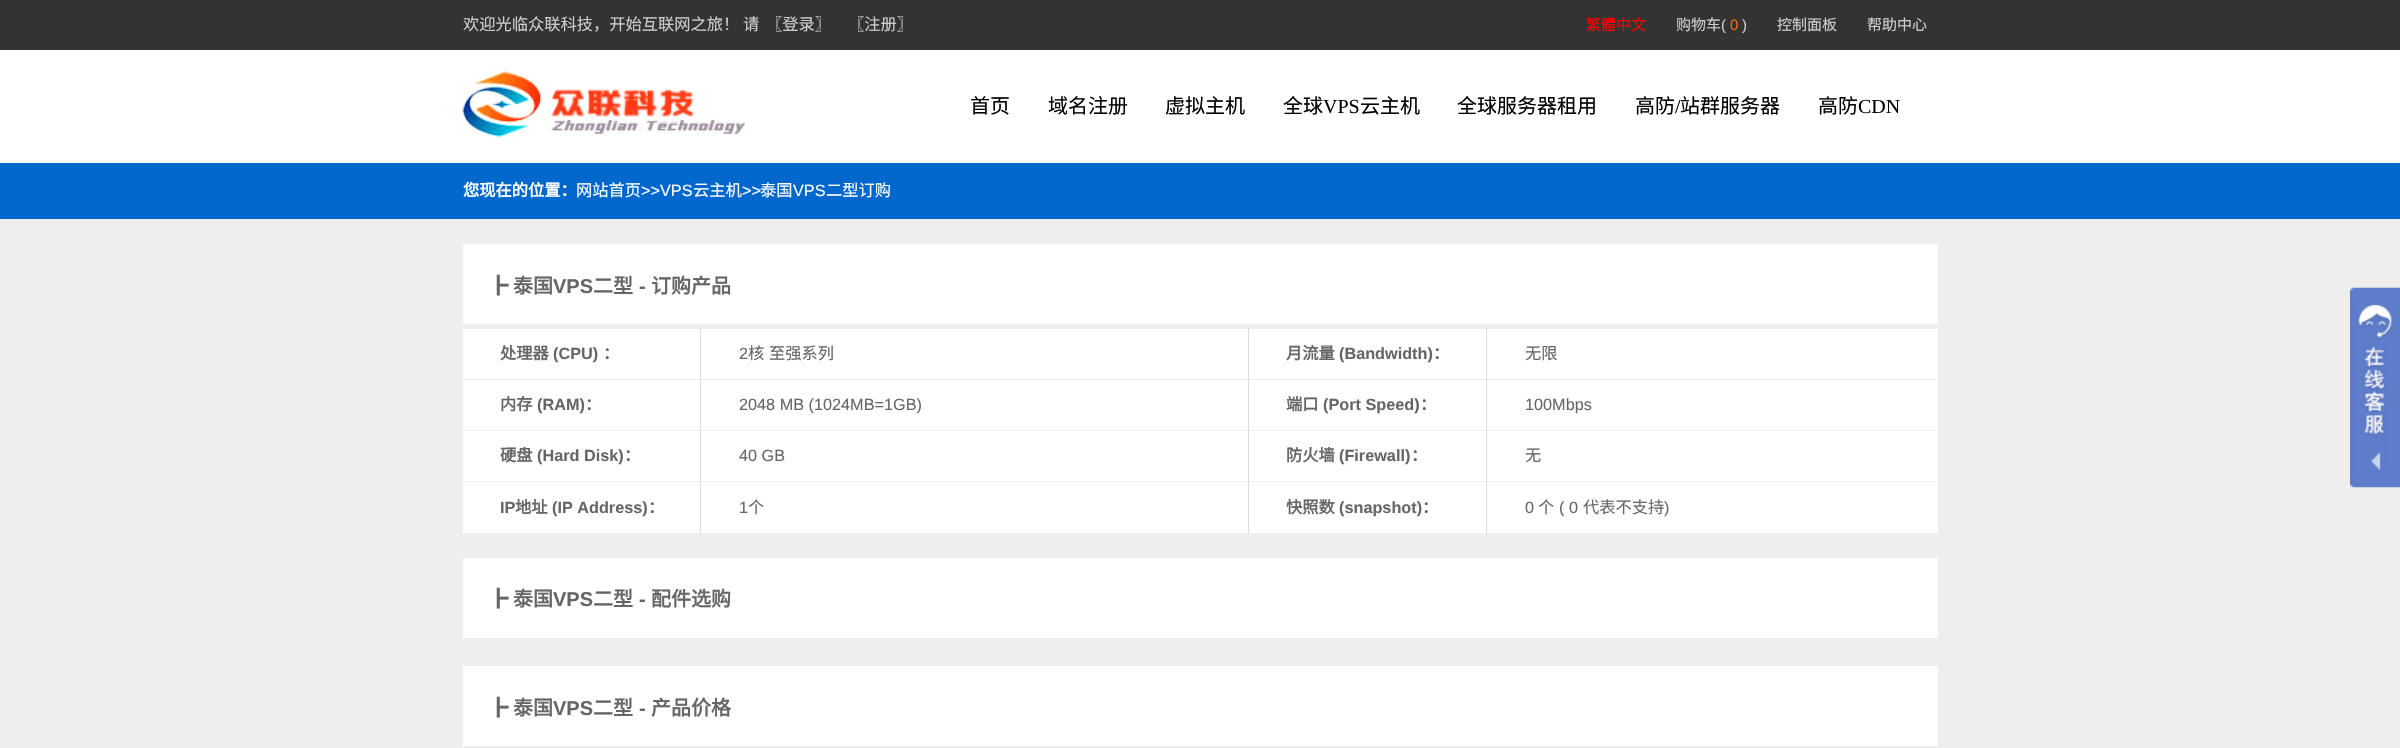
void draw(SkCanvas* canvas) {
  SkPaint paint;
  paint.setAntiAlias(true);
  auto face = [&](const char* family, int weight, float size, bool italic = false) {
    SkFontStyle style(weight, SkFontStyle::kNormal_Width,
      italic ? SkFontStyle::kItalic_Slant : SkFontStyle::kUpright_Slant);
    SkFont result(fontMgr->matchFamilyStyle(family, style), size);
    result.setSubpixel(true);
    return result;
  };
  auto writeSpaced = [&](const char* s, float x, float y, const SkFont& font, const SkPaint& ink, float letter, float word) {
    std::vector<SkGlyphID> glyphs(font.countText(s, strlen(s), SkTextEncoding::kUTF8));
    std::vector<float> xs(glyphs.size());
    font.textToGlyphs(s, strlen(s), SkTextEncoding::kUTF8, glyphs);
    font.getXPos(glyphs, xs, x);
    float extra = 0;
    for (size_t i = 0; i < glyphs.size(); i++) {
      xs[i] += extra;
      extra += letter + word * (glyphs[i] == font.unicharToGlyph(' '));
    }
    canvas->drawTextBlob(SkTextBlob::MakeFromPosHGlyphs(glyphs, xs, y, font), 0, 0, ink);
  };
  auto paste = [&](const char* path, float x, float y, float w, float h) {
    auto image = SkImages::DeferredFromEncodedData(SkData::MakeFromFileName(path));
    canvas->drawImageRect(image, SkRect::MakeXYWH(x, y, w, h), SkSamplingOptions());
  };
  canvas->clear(0xffeeeeee);
  paint.setColor(0xff333333);
  canvas->drawRect(SkRect::MakeXYWH(0, 0, 2400, 50), paint);
  paint.setColor(0xffffffff);
  canvas->drawRect(SkRect::MakeXYWH(0, 50, 2400, 113), paint);
  paste("img/1.png", 462, 71, 283, 67);
  {
    const struct { float x, y, w, h; SkColor color; } items[] = {
      {0, 163, 2400, 56, 0xff0068cc},
      {463, 244, 1475, 80, 0xffffffff},
      {463, 329, 1475, 204, 0xffffffff},
      {463, 379, 1476, 1, 0xffeeeeee},
      {463, 430, 1476, 1, 0xffeeeeee},
      {463, 481, 1476, 1, 0xffeeeeee},
      {700, 481, 1, 53, 0xffdddddd},
      {700, 430, 1, 53, 0xffdddddd},
      {700, 328, 1, 103, 0xffdddddd},
      {1248, 481, 1, 53, 0xffdddddd},
      {1248, 430, 1, 53, 0xffdddddd},
      {1248, 328, 1, 103, 0xffdddddd},
      {1486, 481, 1, 53, 0xffdddddd},
      {1486, 430, 1, 53, 0xffdddddd},
      {1486, 328, 1, 103, 0xffdddddd},
      {463, 558, 1475, 80, 0xffffffff},
      {463, 666, 1475, 80, 0xffffffff},
    };
    for (auto [x, y, w, h, color] : items) {
      paint.setColor(color);
      canvas->drawRect(SkRect::MakeXYWH(x, y, w, h), paint);
    }
  }
  paste("img/2.png", 2350, 287, 50, 201);
  auto f0 = face("Noto Sans CJK SC", 400, 16.25f);
  paint.setColor(0xffcccccc);
  {
    const struct { const char* s; float x, y; } items[] = {
      {"欢迎光临众联科技，开始互联网之旅！", 463, 30},
      {"请", 743, 30},
      {"〖登录〗", 766, 30},
      {"〖注册〗", 848, 30},
    };
    for (auto [s, x, y] : items) {
      canvas->drawString(s, x, y, f0, paint);
    }
  }
  auto f1 = face("Noto Sans CJK SC", 400, 15);
  paint.setColor(0xffff0000);
  canvas->drawString("繁體中文", 1586, 30, f1, paint);
  paint.setColor(0xffcccccc);
  canvas->drawString("购物车", 1676, 30, f1, paint);
  auto f2 = face("Liberation Sans", 400, 15);
  canvas->drawString("(", 1721, 30, f2, paint);
  paint.setColor(0xffff6800);
  canvas->drawString("0", 1730, 30, f2, paint);
  paint.setColor(0xffcccccc);
  canvas->drawString(")", 1742, 30, f2, paint);
  canvas->drawString("控制面板", 1777, 30, f1, paint);
  canvas->drawString("帮助中心", 1867, 30, f1, paint);
  auto f3 = face("Noto Sans CJK SC", 400, 20);
  paint.setColor(0xff000000);
  {
    const struct { const char* s; float x, y; } items[] = {
      {"首页", 970, 113},
      {"域名注册", 1048, 113},
      {"虚拟主机", 1165, 113},
      {"全球", 1283, 113},
    };
    for (auto [s, x, y] : items) {
      canvas->drawString(s, x, y, f3, paint);
    }
  }
  auto f4 = face("Liberation Serif", 400, 20);
  canvas->drawString("VPS", 1323, 113, f4, paint);
  {
    const struct { const char* s; float x, y; } items[] = {
      {"云主机", 1360, 113},
      {"全球服务器租用", 1457, 113},
      {"高防", 1635, 113},
    };
    for (auto [s, x, y] : items) {
      canvas->drawString(s, x, y, f3, paint);
    }
  }
  canvas->drawString("/", 1675, 113, f4, paint);
  canvas->drawString("站群服务器", 1680, 113, f3, paint);
  canvas->drawString("高防", 1818, 113, f3, paint);
  canvas->drawString("CDN", 1858, 113, f4, paint);
  auto f5 = face("Noto Sans CJK SC", 700, 16.25f);
  paint.setColor(0xffffffff);
  canvas->drawString("您现在的位置：", 463, 196, f5, paint);
  canvas->drawString("网站首页", 576, 196, f0, paint);
  auto f6 = face("Liberation Sans", 400, 16.25f);
  canvas->drawString(">>VPS", 641, 196, f6, paint);
  canvas->drawString("云主机", 693, 196, f0, paint);
  canvas->drawString(">>", 742, 196, f6, paint);
  canvas->drawString("泰国", 760, 196, f0, paint);
  canvas->drawString("VPS", 793, 196, f6, paint);
  canvas->drawString("二型订购", 826, 196, f0, paint);
  auto f7 = face("Noto Sans CJK SC", 700, 20);
  paint.setColor(0xff666666);
  canvas->drawString("┣", 488, 293, f7, paint);
  canvas->drawString("泰国", 513, 293, f7, paint);
  auto f8 = face("Liberation Sans", 700, 20);
  canvas->drawString("VPS", 553, 293, f8, paint);
  canvas->drawString("二型", 593, 293, f7, paint);
  canvas->drawString("-", 639, 293, f8, paint);
  canvas->drawString("订购产品", 651, 293, f7, paint);
  canvas->drawString("处理器", 500, 359, f5, paint);
  auto f9 = face("Liberation Sans", 700, 16.25f);
  canvas->drawString("(CPU)", 553, 359, f9, paint);
  canvas->drawString("：", 603, 359, f5, paint);
  canvas->drawString("2", 739, 359, f6, paint);
  writeSpaced("核 至强系列", 748, 359, f0, paint, 0, 1);
  canvas->drawString("月流量", 1286, 359, f5, paint);
  canvas->drawString("(Bandwidth)", 1339, 359, f9, paint);
  canvas->drawString("：", 1433, 359, f5, paint);
  canvas->drawString("无限", 1525, 359, f0, paint);
  canvas->drawString("内存", 500, 410, f5, paint);
  canvas->drawString("(RAM)", 537, 410, f9, paint);
  canvas->drawString("：", 585, 410, f5, paint);
  canvas->drawString("2048 MB (1024MB=1GB)", 739, 410, f6, paint);
  canvas->drawString("端口", 1286, 410, f5, paint);
  canvas->drawString("(Port Speed)", 1323, 410, f9, paint);
  canvas->drawString("：", 1420, 410, f5, paint);
  canvas->drawString("100Mbps", 1525, 410, f6, paint);
  canvas->drawString("硬盘", 500, 461, f5, paint);
  canvas->drawString("(Hard Disk)", 537, 461, f9, paint);
  canvas->drawString("：", 624, 461, f5, paint);
  canvas->drawString("40 GB", 739, 461, f6, paint);
  canvas->drawString("防火墙", 1286, 461, f5, paint);
  canvas->drawString("(Firewall)", 1339, 461, f9, paint);
  canvas->drawString("：", 1411, 461, f5, paint);
  canvas->drawString("无", 1525, 461, f0, paint);
  canvas->drawString("IP", 500, 513, f9, paint);
  canvas->drawString("地址", 515, 513, f5, paint);
  canvas->drawString("(IP Address)", 552, 513, f9, paint);
  canvas->drawString("：", 648, 513, f5, paint);
  canvas->drawString("1", 739, 513, f6, paint);
  canvas->drawString("个", 748, 513, f0, paint);
  canvas->drawString("快照数", 1286, 513, f5, paint);
  canvas->drawString("(snapshot)", 1339, 513, f9, paint);
  canvas->drawString("：", 1422, 513, f5, paint);
  canvas->drawString("0", 1525, 513, f6, paint);
  canvas->drawString("个", 1538, 513, f0, paint);
  canvas->drawString("( 0", 1559, 513, f6, paint);
  canvas->drawString("代表不支持", 1583, 513, f0, paint);
  canvas->drawString(")", 1664, 513, f6, paint);
  canvas->drawString("┣", 488, 606, f7, paint);
  canvas->drawString("泰国", 513, 606, f7, paint);
  canvas->drawString("VPS", 553, 606, f8, paint);
  canvas->drawString("二型", 593, 606, f7, paint);
  canvas->drawString("-", 639, 606, f8, paint);
  {
    const struct { const char* s; float x, y; } items[] = {
      {"配件选购", 651, 606},
      {"┣", 488, 715},
      {"泰国", 513, 715},
    };
    for (auto [s, x, y] : items) {
      canvas->drawString(s, x, y, f7, paint);
    }
  }
  canvas->drawString("VPS", 553, 715, f8, paint);
  canvas->drawString("二型", 593, 715, f7, paint);
  canvas->drawString("-", 639, 715, f8, paint);
  canvas->drawString("产品价格", 651, 715, f7, paint);
}
